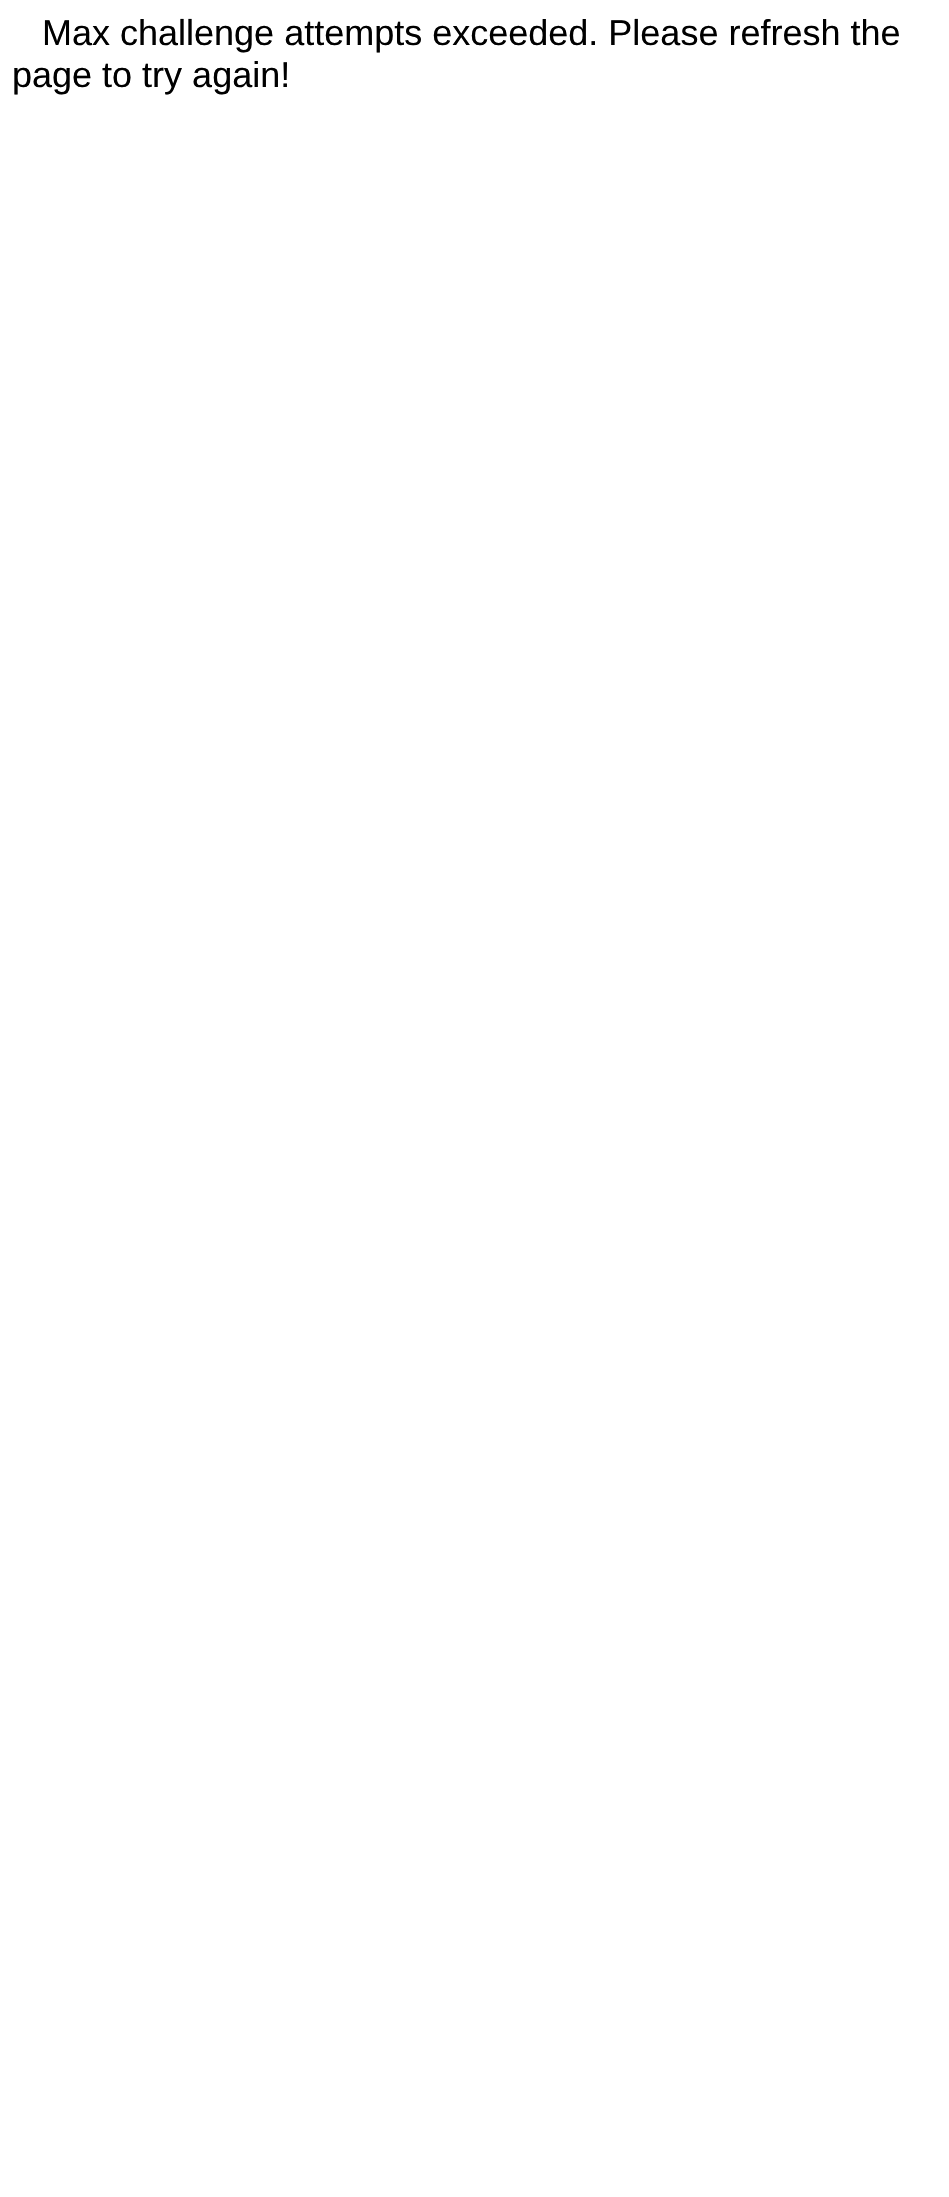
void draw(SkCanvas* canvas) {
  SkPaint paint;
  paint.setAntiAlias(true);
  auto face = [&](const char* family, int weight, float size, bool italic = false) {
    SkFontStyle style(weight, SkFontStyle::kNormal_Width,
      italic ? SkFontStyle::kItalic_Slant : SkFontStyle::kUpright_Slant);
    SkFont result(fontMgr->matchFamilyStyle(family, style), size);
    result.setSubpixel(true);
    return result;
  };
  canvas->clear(0xffffffff);
  auto f0 = face("Liberation Sans", 400, 36);
  paint.setColor(0xff000000);
  canvas->drawString("Max challenge attempts exceeded. Please refresh the", 42, 45, f0, paint);
  canvas->drawString("page to try again!", 12, 87, f0, paint);
}
